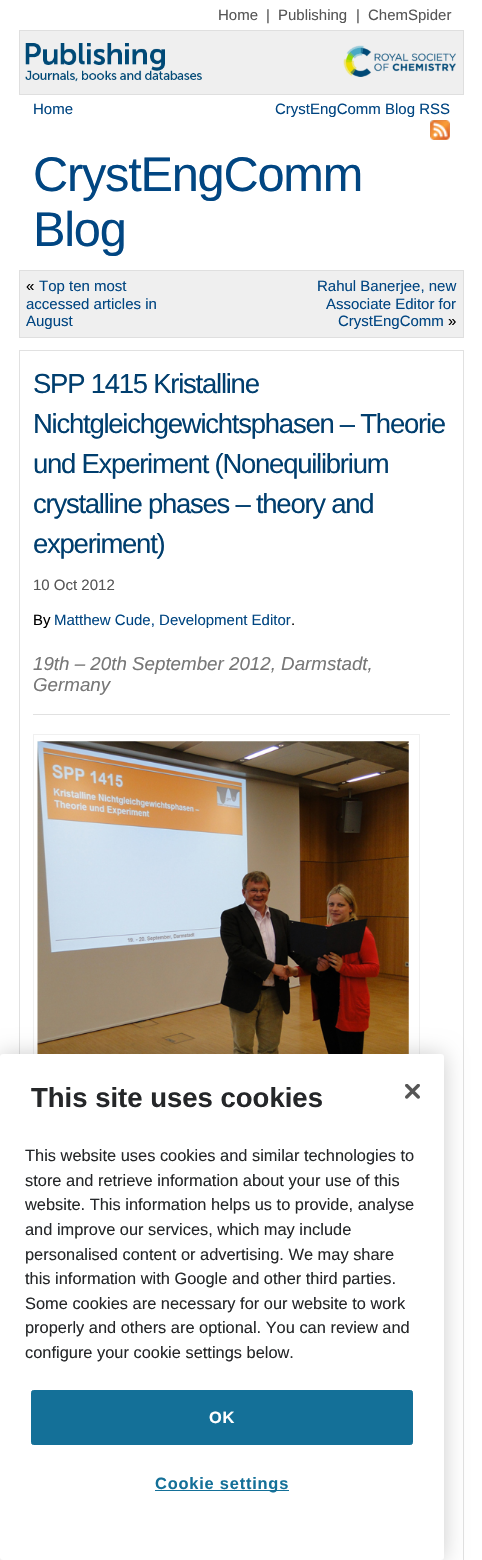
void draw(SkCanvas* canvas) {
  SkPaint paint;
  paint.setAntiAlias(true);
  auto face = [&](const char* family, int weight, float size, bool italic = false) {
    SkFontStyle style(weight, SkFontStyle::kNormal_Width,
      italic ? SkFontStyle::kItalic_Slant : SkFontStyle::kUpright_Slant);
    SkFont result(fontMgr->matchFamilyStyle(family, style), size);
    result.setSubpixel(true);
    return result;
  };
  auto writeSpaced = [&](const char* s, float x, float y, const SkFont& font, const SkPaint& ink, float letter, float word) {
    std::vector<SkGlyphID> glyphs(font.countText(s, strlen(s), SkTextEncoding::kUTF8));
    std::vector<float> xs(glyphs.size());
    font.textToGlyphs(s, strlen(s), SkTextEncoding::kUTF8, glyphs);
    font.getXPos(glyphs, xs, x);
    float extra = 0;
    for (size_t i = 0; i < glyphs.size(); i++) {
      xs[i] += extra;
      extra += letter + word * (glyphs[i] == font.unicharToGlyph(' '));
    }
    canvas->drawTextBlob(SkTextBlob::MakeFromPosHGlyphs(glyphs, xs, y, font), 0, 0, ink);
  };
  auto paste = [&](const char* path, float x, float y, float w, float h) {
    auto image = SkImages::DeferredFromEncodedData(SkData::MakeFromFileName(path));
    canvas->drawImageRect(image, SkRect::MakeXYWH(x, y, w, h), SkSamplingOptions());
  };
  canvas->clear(0xffffffff);
  paint.setColor(0xffefefef);
  canvas->drawRect(SkRect::MakeXYWH(19.5f, 30.5f, 444, 64), paint);
  paint.setStroke(true);
  paint.setStrokeWidth(1);
  paint.setColor(0xffdfdfdf);
  canvas->drawRect(SkRect::MakeXYWH(19.5f, 30.5f, 444, 64), paint);
  paste("img/1.png", 25, 43, 177, 39);
  paste("img/2.png", 343, 45, 113, 32);
  paste("img/3.png", 430, 120, 20, 20);
  paint.setStroke(false);
  paint.setColor(0xffefefef);
  canvas->drawRect(SkRect::MakeXYWH(19.5f, 270.5f, 444, 67), paint);
  paint.setStroke(true);
  paint.setColor(0xffdfdfdf);
  canvas->drawRect(SkRect::MakeXYWH(19.5f, 270.5f, 444, 67), paint);
  paint.setColor(0xffe1e1e1);
  canvas->drawRect(SkRect::MakeXYWH(19.5f, 350.5f, 444, 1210), paint);
  paint.setStroke(false);
  canvas->drawRect(SkRect::MakeXYWH(33, 714, 417, 1), paint);
  paint.setStroke(true);
  paint.setColor(0xfff0f0f0);
  canvas->drawRect(SkRect::MakeXYWH(33.5f, 734.5f, 386, 478), paint);
  paste("img/4.png", 37, 741, 372, 313);
  paint.setStroke(false);
  paint.setColor(0x33000000);
  paint.setMaskFilter(SkMaskFilter::MakeBlur(kNormal_SkBlurStyle, 11));
  canvas->drawRoundRect(SkRect::MakeXYWH(0, 1054, 444, 506), 3, 3, paint);
  paint.setMaskFilter(nullptr);
  paint.setColor(0xffffffff);
  canvas->drawRoundRect(SkRect::MakeXYWH(0, 1054, 444, 506), 3, 3, paint);
  paste("img/5.png", 405, 1084, 15, 15);
  paint.setColor(0xff147098);
  canvas->drawRoundRect(SkRect::MakeXYWH(31.5f, 1390.5f, 381, 54), 2, 2, paint);
  paint.setStroke(true);
  canvas->drawRoundRect(SkRect::MakeXYWH(31.5f, 1390.5f, 381, 54), 2, 2, paint);
  paint.setStroke(false);
  canvas->drawRect(SkRect::MakeXYWH(155, 1490, 134, 1), paint);
  auto f0 = face("Liberation Sans", 400, 15);
  paint.setColor(0xff565656);
  {
    const struct { const char* s; float x, y; } items[] = {
      {"Home", 218, 20},
      {"|", 266, 20},
      {"Publishing", 278, 20},
      {"|", 356, 20},
      {"ChemSpider", 368, 20},
    };
    for (auto [s, x, y] : items) {
      canvas->drawString(s, x, y, f0, paint);
    }
  }
  paint.setColor(0xff014682);
  canvas->drawString("Home", 33, 114, f0, paint);
  canvas->drawString("CrystEngComm Blog RSS", 275, 114, f0, paint);
  auto f1 = face("Liberation Sans", 400, 48.75f);
  writeSpaced("CrystEngComm", 33, 191, f1, paint, -1.25f, 0);
  writeSpaced("Blog", 33, 246, f1, paint, -1.25f, 0);
  paint.setColor(0xff000000);
  canvas->drawString("«", 26, 291, f0, paint);
  paint.setColor(0xff014682);
  {
    const struct { const char* s; float x, y; } items[] = {
      {"Top ten most", 39, 291},
      {"accessed articles in", 26, 309},
      {"August", 26, 326},
      {"Rahul Banerjee, new", 317, 291},
      {"Associate Editor for", 326, 309},
      {"CrystEngComm", 338, 326},
    };
    for (auto [s, x, y] : items) {
      canvas->drawString(s, x, y, f0, paint);
    }
  }
  paint.setColor(0xff000000);
  canvas->drawString("»", 448, 326, f0, paint);
  auto f2 = face("Liberation Sans", 400, 27.5f);
  paint.setColor(0xff003e6e);
  {
    const struct { const char* s; float x, y; } items[] = {
      {"SPP 1415 Kristalline", 33, 393},
      {"Nichtgleichgewichtsphasen – Theorie", 33, 433},
      {"und Experiment (Nonequilibrium", 33, 473},
      {"crystalline phases – theory and", 33, 513},
      {"experiment)", 33, 553},
    };
    for (auto [s, x, y] : items) {
      writeSpaced(s, x, y, f2, paint, -1.25f, 0);
    }
  }
  paint.setColor(0xff565656);
  canvas->drawString("10 Oct 2012", 33, 590, f0, paint);
  paint.setColor(0xff000000);
  canvas->drawString("By", 33, 625, f0, paint);
  paint.setColor(0xff014682);
  canvas->drawString("Matthew Cude, Development Editor", 54, 625, f0, paint);
  paint.setColor(0xff000000);
  canvas->drawString(".", 291, 625, f0, paint);
  auto f3 = face("Liberation Sans", 400, 18.75f, true);
  paint.setColor(0xff777777);
  canvas->drawString("19th – 20th September 2012, Darmstadt,", 33, 670, f3, paint);
  canvas->drawString("Germany", 33, 691, f3, paint);
  auto f4 = face("Liberation Sans", 700, 27.5f);
  paint.setColor(0xff252729);
  canvas->drawString("This site uses cookies", 31, 1107, f4, paint);
  auto f5 = face("Liberation Sans", 400, 16.4f);
  {
    const struct { const char* s; float x, y; } items[] = {
      {"This website uses cookies and similar technologies to", 25, 1161},
      {"store and retrieve information about your use of this", 25, 1186},
      {"website. This information helps us to provide, analyse", 25, 1210},
      {"and improve our services, which may include", 25, 1235},
      {"personalised content or advertising. We may share", 25, 1260},
      {"this information with Google and other third parties.", 25, 1284},
      {"Some cookies are necessary for our website to work", 25, 1309},
      {"properly and others are optional. You can review and", 25, 1333},
      {"configure your cookie settings below.", 25, 1358},
    };
    for (auto [s, x, y] : items) {
      canvas->drawString(s, x, y, f5, paint);
    }
  }
  auto f6 = face("Liberation Sans", 700, 16.4f);
  paint.setColor(0xffffffff);
  writeSpaced("OK", 209, 1423, f6, paint, 0.8f, 0);
  paint.setColor(0xff147098);
  writeSpaced("Cookie settings", 155, 1489, f6, paint, 0.8f, 0);
}
